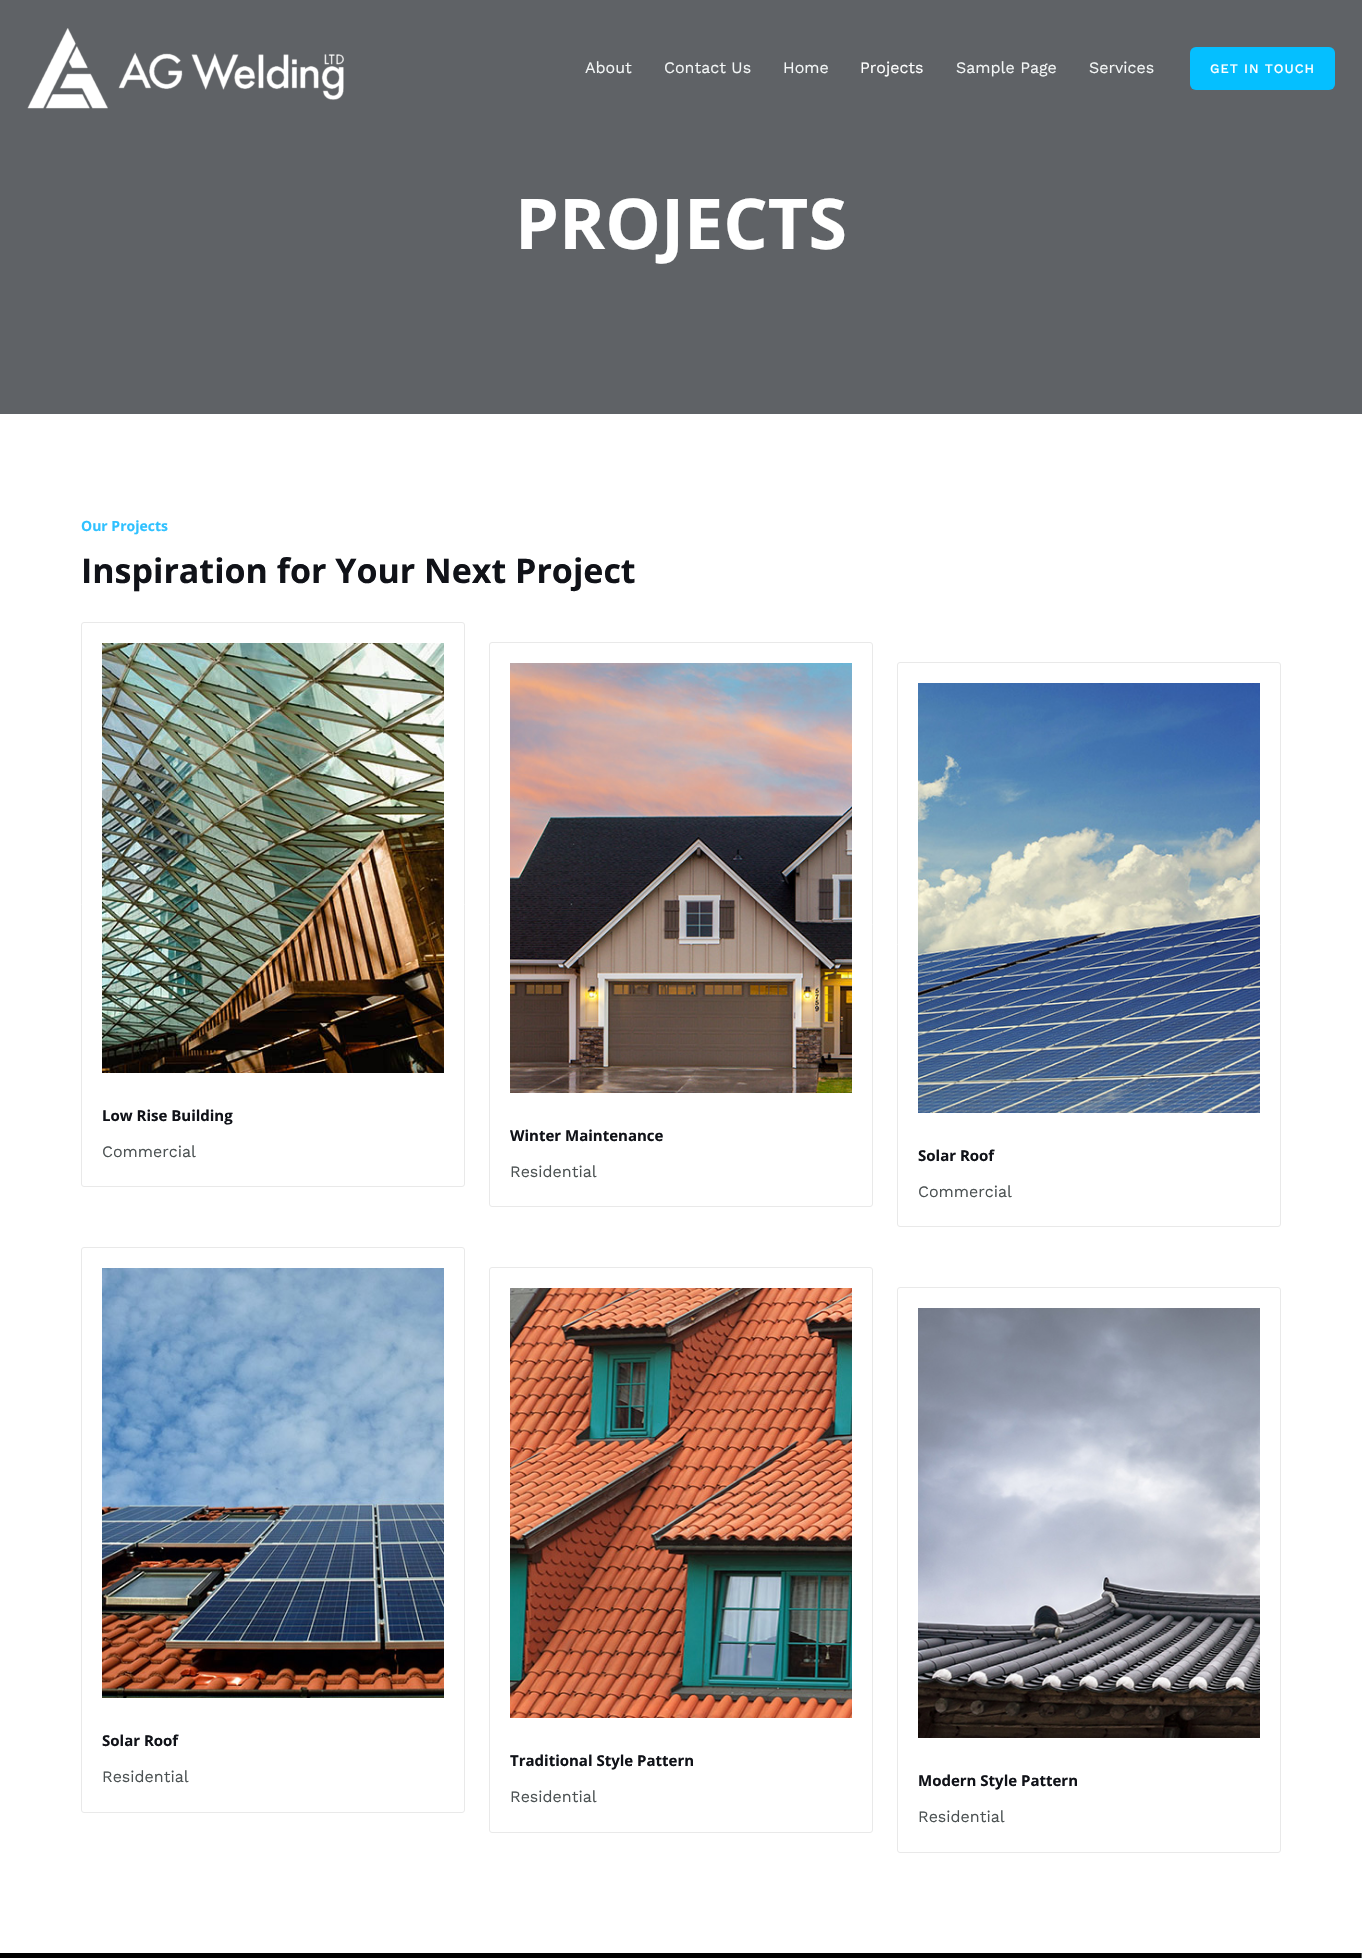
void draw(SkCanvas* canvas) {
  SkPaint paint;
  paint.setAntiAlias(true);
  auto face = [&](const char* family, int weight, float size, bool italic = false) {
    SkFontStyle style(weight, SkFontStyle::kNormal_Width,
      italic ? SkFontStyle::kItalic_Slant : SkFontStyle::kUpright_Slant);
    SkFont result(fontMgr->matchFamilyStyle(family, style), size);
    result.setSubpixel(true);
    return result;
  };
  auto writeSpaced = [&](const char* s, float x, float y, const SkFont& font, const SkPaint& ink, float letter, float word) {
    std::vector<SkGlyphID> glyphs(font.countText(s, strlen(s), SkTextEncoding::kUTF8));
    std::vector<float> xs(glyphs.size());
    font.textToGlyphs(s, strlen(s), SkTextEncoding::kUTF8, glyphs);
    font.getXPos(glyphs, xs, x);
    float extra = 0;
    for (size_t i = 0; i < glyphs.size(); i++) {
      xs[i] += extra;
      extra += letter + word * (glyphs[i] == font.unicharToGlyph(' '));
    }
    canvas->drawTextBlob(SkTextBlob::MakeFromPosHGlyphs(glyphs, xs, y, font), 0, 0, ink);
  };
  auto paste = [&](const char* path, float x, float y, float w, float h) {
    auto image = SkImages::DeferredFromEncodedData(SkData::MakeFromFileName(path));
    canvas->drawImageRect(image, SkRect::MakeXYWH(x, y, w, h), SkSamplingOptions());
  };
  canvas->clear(0xff4c5253);
  paint.setColor(0xff5f6266);
  canvas->drawRect(SkRect::MakeXYWH(0, 0, 1362, 414), paint);
  paste("img/1.png", 27, 28, 317, 81);
  paint.setColor(0xff05bfff);
  canvas->drawRoundRect(SkRect::MakeXYWH(1190, 47, 145, 43), 6, 6, paint);
  paint.setColor(0xffffffff);
  canvas->drawRect(SkRect::MakeXYWH(0, 414, 1362, 1539), paint);
  paint.setStroke(true);
  paint.setStrokeWidth(1);
  paint.setColor(0xffe9e9e9);
  canvas->drawRoundRect(SkRect::MakeXYWH(81.5f, 622.5f, 383, 564), 2.5f, 2.5f, paint);
  paste("img/2.png", 102, 643, 342, 430);
  canvas->drawRoundRect(SkRect::MakeXYWH(489.5f, 642.5f, 383, 564), 2.5f, 2.5f, paint);
  paste("img/3.png", 510, 663, 342, 430);
  canvas->drawRoundRect(SkRect::MakeXYWH(897.5f, 662.5f, 383, 564), 2.5f, 2.5f, paint);
  paste("img/4.png", 918, 683, 342, 430);
  canvas->drawRoundRect(SkRect::MakeXYWH(81.5f, 1247.5f, 383, 565), 2.5f, 2.5f, paint);
  paste("img/5.png", 102, 1268, 342, 430);
  canvas->drawRoundRect(SkRect::MakeXYWH(489.5f, 1267.5f, 383, 565), 2.5f, 2.5f, paint);
  paste("img/6.png", 510, 1288, 342, 430);
  canvas->drawRoundRect(SkRect::MakeXYWH(897.5f, 1287.5f, 383, 565), 2.5f, 2.5f, paint);
  paste("img/7.png", 918, 1308, 342, 430);
  paint.setStroke(false);
  paint.setColor(0xff000000);
  canvas->drawRect(SkRect::MakeXYWH(0, 1953, 1361, 5), paint);
  auto f0 = face("Work Sans", 400, 16);
  paint.setColor(0xfff3f6f6);
  {
    const struct { const char* s; float x, y; } items[] = {
      {"About", 585, 73},
      {"Contact Us", 664, 73},
      {"Home", 783, 73},
    };
    for (auto [s, x, y] : items) {
      canvas->drawString(s, x, y, f0, paint);
    }
  }
  paint.setColor(0xffffffff);
  canvas->drawString("Projects", 860, 73, f0, paint);
  paint.setColor(0xfff3f6f6);
  canvas->drawString("Sample Page", 956, 73, f0, paint);
  canvas->drawString("Services", 1089, 73, f0, paint);
  auto f1 = face("Work Sans", 500, 13);
  paint.setColor(0xffffffff);
  writeSpaced("GET IN TOUCH", 1210, 73, f1, paint, 1, 0);
  auto f2 = face("Open Sans", 700, 70);
  canvas->drawString("PROJECTS", 515, 249, f2, paint);
  auto f3 = face("Open Sans", 700, 14);
  paint.setColor(0xff2fc1ff);
  canvas->drawString("Our Projects", 81, 531, f3, paint);
  auto f4 = face("Open Sans", 700, 34);
  paint.setColor(0xff101218);
  canvas->drawString("Inspiration for Your Next Project", 81, 583, f4, paint);
  auto f5 = face("Open Sans", 700, 15);
  canvas->drawString("Low Rise Building", 102, 1121, f5, paint);
  paint.setColor(0xff4c5253);
  canvas->drawString("Commercial", 102, 1157, f0, paint);
  paint.setColor(0xff101218);
  canvas->drawString("Winter Maintenance", 510, 1141, f5, paint);
  paint.setColor(0xff4c5253);
  canvas->drawString("Residential", 510, 1177, f0, paint);
  paint.setColor(0xff101218);
  canvas->drawString("Solar Roof", 918, 1161, f5, paint);
  paint.setColor(0xff4c5253);
  canvas->drawString("Commercial", 918, 1197, f0, paint);
  paint.setColor(0xff101218);
  canvas->drawString("Solar Roof", 102, 1746, f5, paint);
  paint.setColor(0xff4c5253);
  canvas->drawString("Residential", 102, 1782, f0, paint);
  paint.setColor(0xff101218);
  canvas->drawString("Traditional Style Pattern", 510, 1766, f5, paint);
  paint.setColor(0xff4c5253);
  canvas->drawString("Residential", 510, 1802, f0, paint);
  paint.setColor(0xff101218);
  canvas->drawString("Modern Style Pattern", 918, 1786, f5, paint);
  paint.setColor(0xff4c5253);
  canvas->drawString("Residential", 918, 1822, f0, paint);
}
